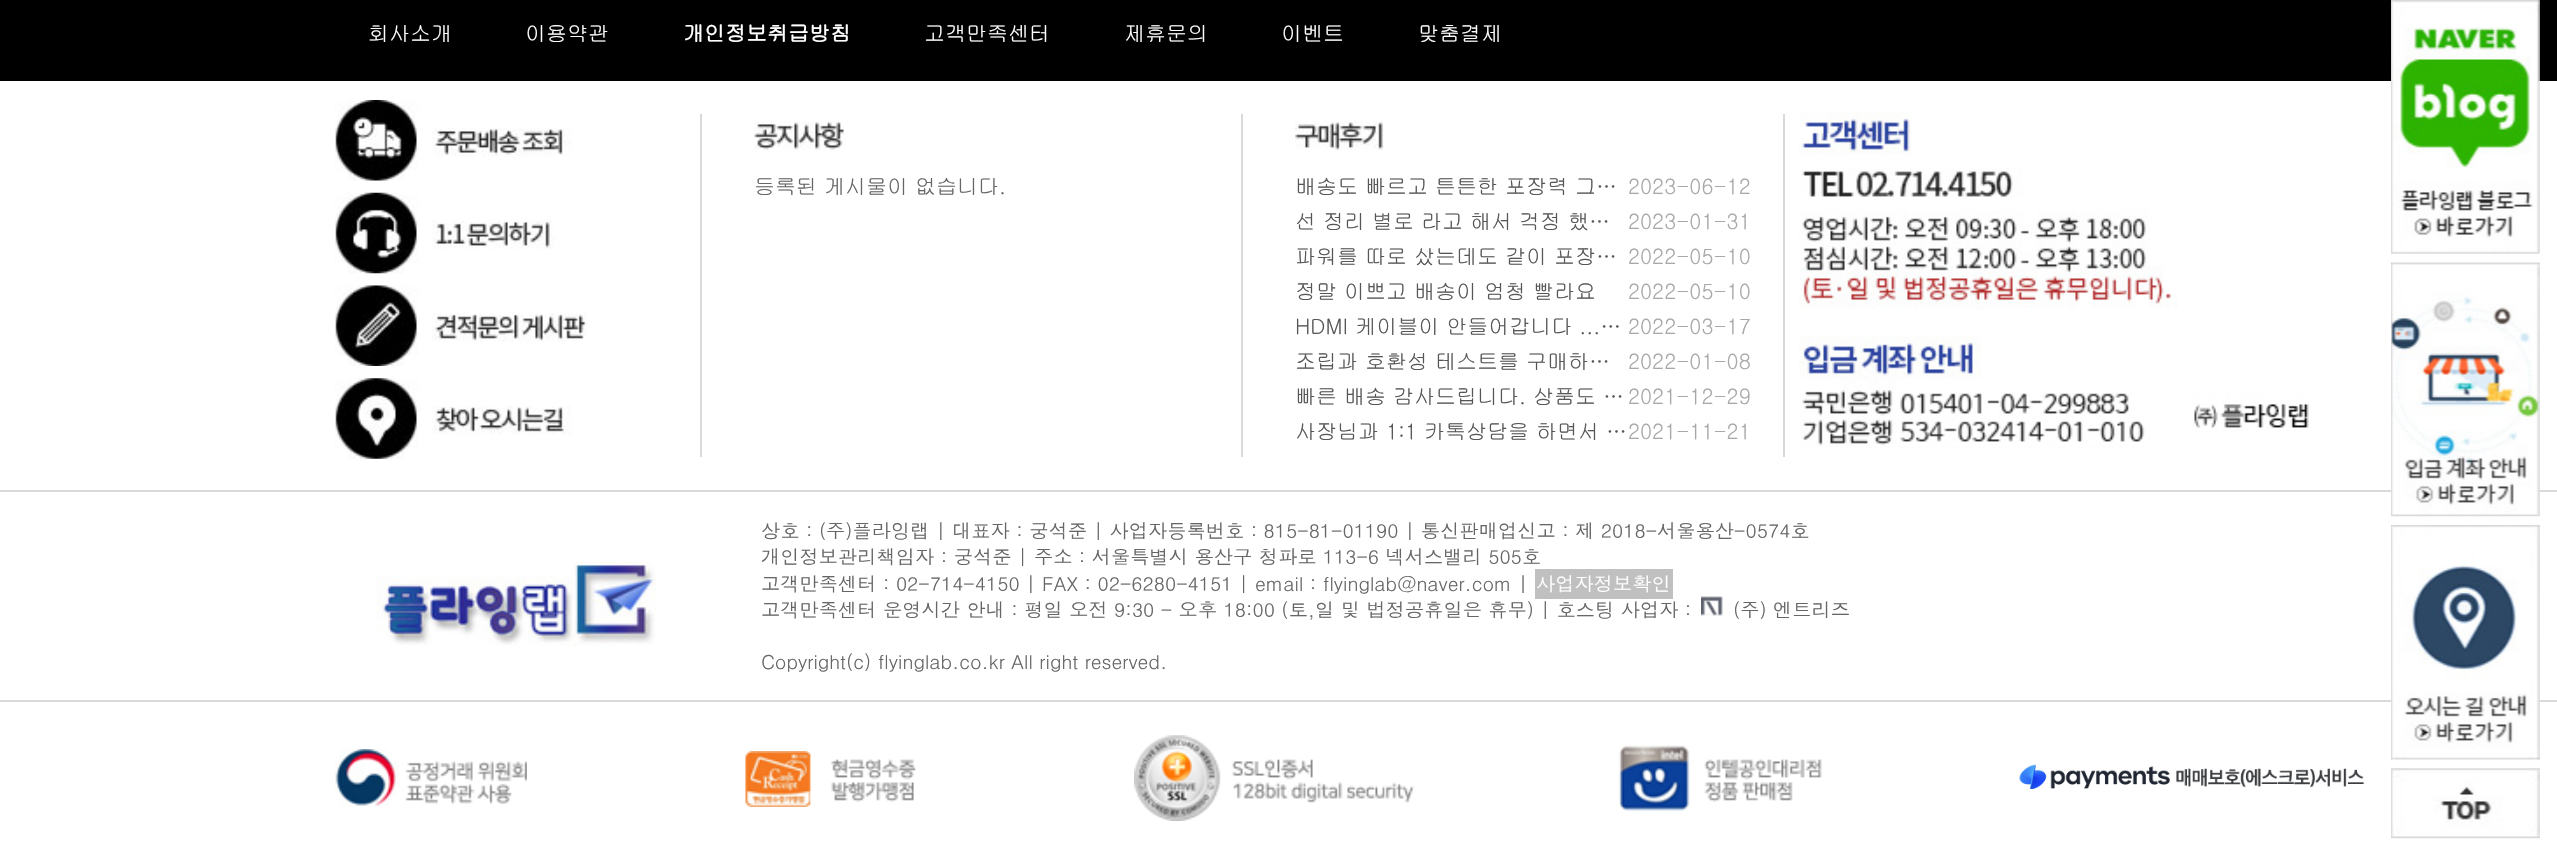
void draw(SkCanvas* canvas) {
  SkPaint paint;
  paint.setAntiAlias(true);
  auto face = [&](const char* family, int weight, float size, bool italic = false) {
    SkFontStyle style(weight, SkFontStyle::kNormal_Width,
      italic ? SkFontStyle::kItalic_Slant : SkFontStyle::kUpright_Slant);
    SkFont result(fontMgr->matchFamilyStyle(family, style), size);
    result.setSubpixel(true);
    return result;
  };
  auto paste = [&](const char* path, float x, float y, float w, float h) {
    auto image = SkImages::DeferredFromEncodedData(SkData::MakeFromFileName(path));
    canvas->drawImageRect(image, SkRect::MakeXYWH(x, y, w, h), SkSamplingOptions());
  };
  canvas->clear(0xffffffff);
  paint.setColor(0xff000000);
  canvas->drawRect(SkRect::MakeXYWH(0, 0, 2557, 81), paint);
  paste("img/1.png", 335, 100, 237, 81);
  paste("img/2.png", 335, 192, 220, 82);
  paste("img/3.png", 335, 285, 252, 81);
  paste("img/4.png", 335, 378, 237, 81);
  paint.setColor(0xffd9d9d9);
  canvas->drawRect(SkRect::MakeXYWH(700, 114, 2, 343), paint);
  paste("img/5.png", 754, 121, 90, 29);
  canvas->drawRect(SkRect::MakeXYWH(1241, 114, 2, 343), paint);
  paste("img/6.png", 1295, 121, 89, 29);
  canvas->drawRect(SkRect::MakeXYWH(1783, 114, 2, 343), paint);
  paste("img/7.png", 1799, 112, 510, 336);
  canvas->drawRect(SkRect::MakeXYWH(0, 490, 2557, 2), paint);
  canvas->drawRect(SkRect::MakeXYWH(0, 700, 2557, 2), paint);
  paste("img/8.png", 376, 562, 280, 84);
  paint.setColor(0xffc0c0c0);
  canvas->drawRect(SkRect::MakeXYWH(1535, 569, 138, 30), paint);
  paste("img/9.png", 1701, 596, 22, 20);
  paste("img/10.png", 334, 749, 193, 58);
  paste("img/11.png", 745, 751, 171, 56);
  paste("img/12.png", 1134, 735, 280, 86);
  paste("img/13.png", 1618, 745, 204, 66);
  paste("img/14.png", 2019, 764, 346, 25);
  paste("img/15.png", 2391, 0, 149, 254);
  paste("img/16.png", 2391, 262, 149, 255);
  paste("img/17.png", 2391, 525, 149, 235);
  paste("img/18.png", 2391, 768, 149, 71);
  auto f0 = face("Gulim", 400, 21);
  paint.setColor(0xffffffff);
  canvas->drawString("회사소개", 368, 41, f0, paint);
  canvas->drawString("이용약관", 525, 41, f0, paint);
  auto f1 = face("Gulim", 700, 21);
  canvas->drawString("개인정보취급방침", 683, 41, f1, paint);
  {
    const struct { const char* s; float x, y; } items[] = {
      {"고객만족센터", 924, 41},
      {"제휴문의", 1124, 41},
      {"이벤트", 1281, 41},
      {"맞춤결제", 1418, 41},
    };
    for (auto [s, x, y] : items) {
      canvas->drawString(s, x, y, f0, paint);
    }
  }
  paint.setColor(0xff666666);
  canvas->drawString("등록된 게시물이 없습니다.", 754, 194, f0, paint);
  paint.setColor(0xff565656);
  canvas->drawString("배송도 빠르고 튼튼한 포장력 그…", 1295, 194, f0, paint);
  paint.setColor(0xffa8a8a8);
  canvas->drawString("2023-06-12", 1628, 194, f0, paint);
  paint.setColor(0xff565656);
  canvas->drawString("선 정리 별로 라고 해서 걱정 했…", 1295, 229, f0, paint);
  paint.setColor(0xffa8a8a8);
  canvas->drawString("2023-01-31", 1628, 229, f0, paint);
  paint.setColor(0xff565656);
  canvas->drawString("파워를 따로 샀는데도 같이 포장…", 1295, 264, f0, paint);
  paint.setColor(0xffa8a8a8);
  canvas->drawString("2022-05-10", 1628, 264, f0, paint);
  paint.setColor(0xff565656);
  canvas->drawString("정말 이쁘고 배송이 엄청 빨라요", 1295, 299, f0, paint);
  paint.setColor(0xffa8a8a8);
  canvas->drawString("2022-05-10", 1628, 299, f0, paint);
  paint.setColor(0xff565656);
  canvas->drawString("HDMI 케이블이 안들어갑니다 ...…", 1295, 334, f0, paint);
  paint.setColor(0xffa8a8a8);
  canvas->drawString("2022-03-17", 1628, 334, f0, paint);
  paint.setColor(0xff565656);
  canvas->drawString("조립과 호환성 테스트를 구매하…", 1295, 369, f0, paint);
  paint.setColor(0xffa8a8a8);
  canvas->drawString("2022-01-08", 1628, 369, f0, paint);
  paint.setColor(0xff565656);
  canvas->drawString("빠른 배송 감사드립니다. 상품도 …", 1295, 404, f0, paint);
  paint.setColor(0xffa8a8a8);
  canvas->drawString("2021-12-29", 1628, 404, f0, paint);
  paint.setColor(0xff565656);
  canvas->drawString("사장님과 1:1 카톡상담을 하면서 …", 1295, 439, f0, paint);
  paint.setColor(0xffa8a8a8);
  canvas->drawString("2021-11-21", 1628, 439, f0, paint);
  auto f2 = face("Dotum", 400, 19.25f);
  paint.setColor(0xff666666);
  {
    const struct { const char* s; float x, y; } items[] = {
      {"상호 : (주)플라잉랩 | 대표자 : 궁석준 | 사업자등록번호 : 815-81-01190 | 통신판매업신고 : 제 2018-서울용산-0574호", 761, 538},
      {"개인정보관리책임자 : 궁석준 | 주소 : 서울특별시 용산구 청파로 113-6 넥서스밸리 505호", 761, 564},
      {"고객만족센터 : 02-714-4150 | FAX : 02-6280-4151 | email : flyinglab@naver.com |", 761, 591},
    };
    for (auto [s, x, y] : items) {
      canvas->drawString(s, x, y, f2, paint);
    }
  }
  paint.setColor(0xffffffff);
  canvas->drawString("사업자정보확인", 1536, 591, f2, paint);
  paint.setColor(0xff666666);
  {
    const struct { const char* s; float x, y; } items[] = {
      {"고객만족센터 운영시간 안내 : 평일 오전 9:30 - 오후 18:00 (토,일 및 법정공휴일은 휴무) | 호스팅 사업자 :", 761, 617},
      {"(주) 엔트리즈", 1733, 617},
      {"Copyright(c) flyinglab.co.kr All right reserved.", 761, 669},
    };
    for (auto [s, x, y] : items) {
      canvas->drawString(s, x, y, f2, paint);
    }
  }
}
